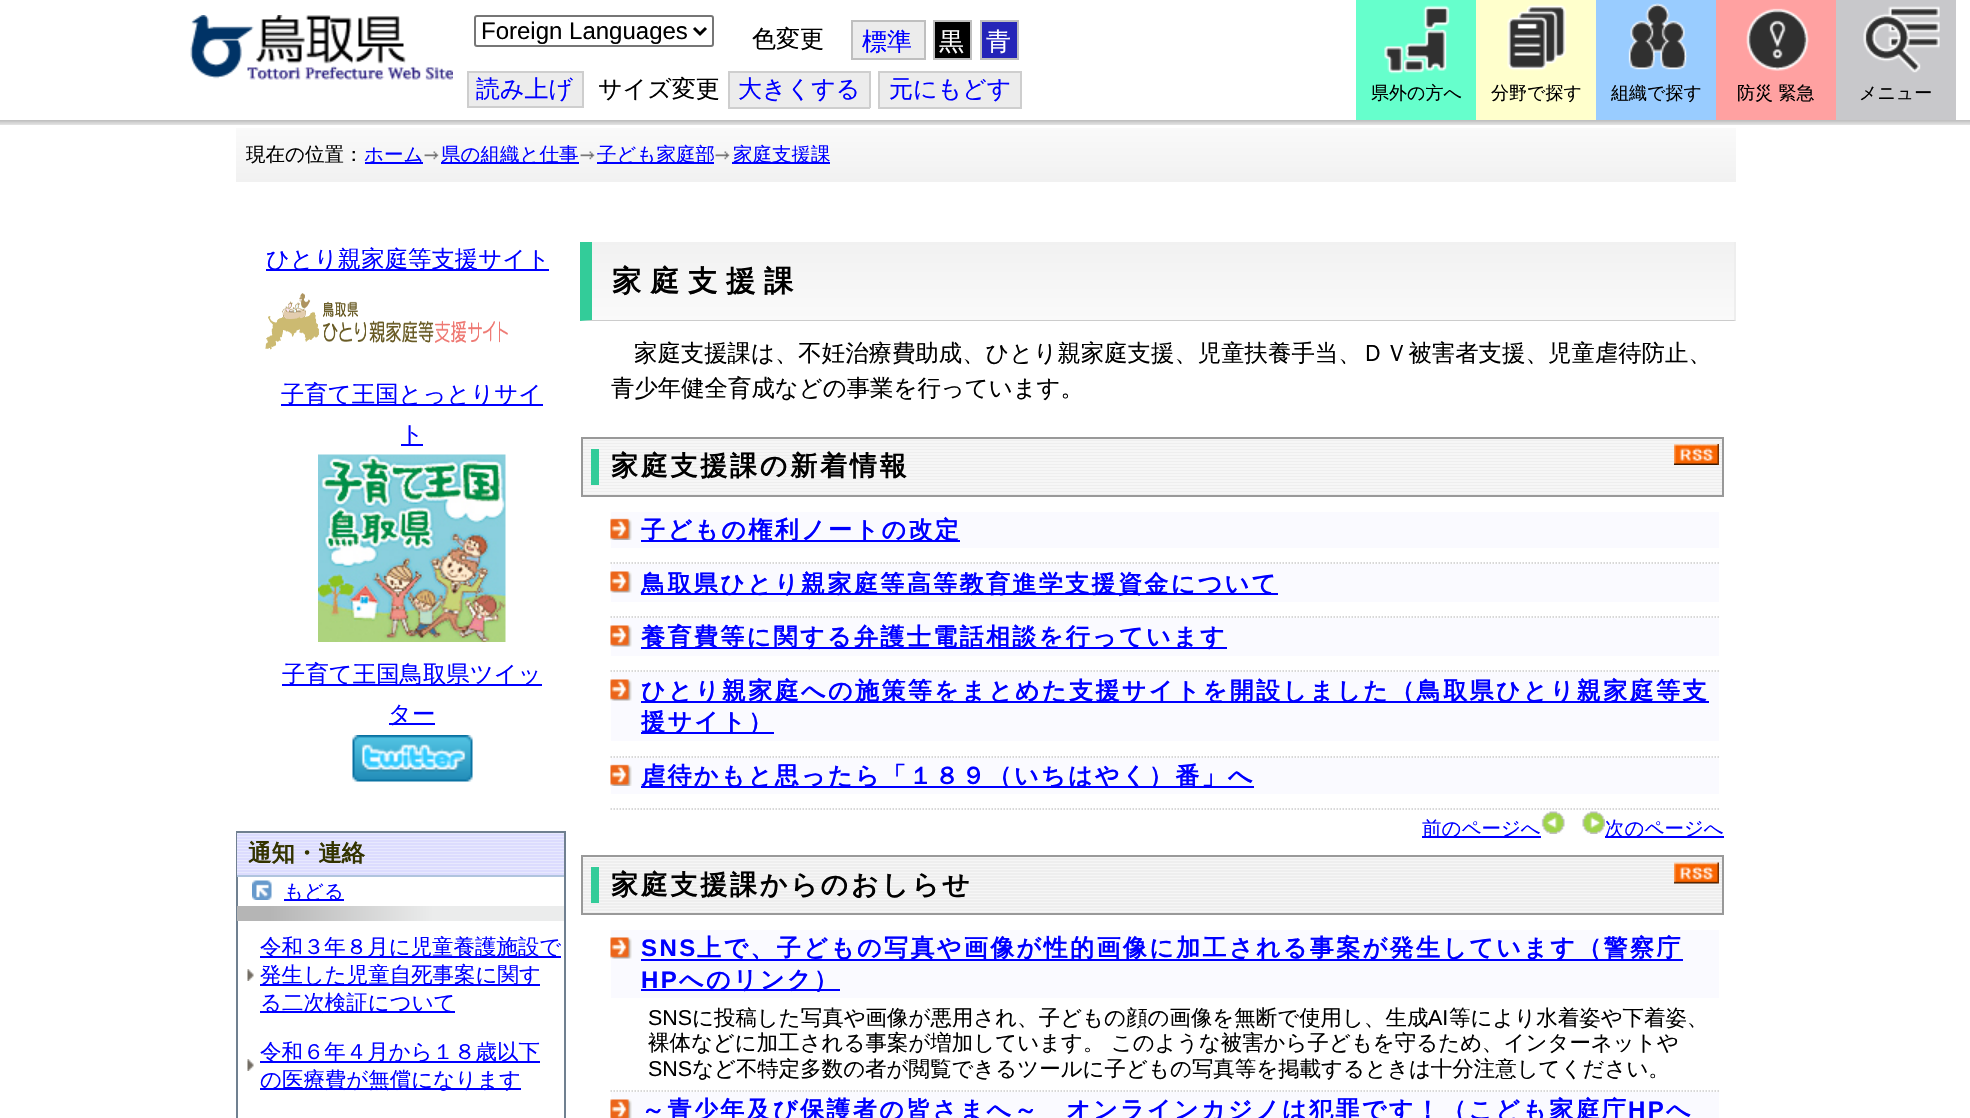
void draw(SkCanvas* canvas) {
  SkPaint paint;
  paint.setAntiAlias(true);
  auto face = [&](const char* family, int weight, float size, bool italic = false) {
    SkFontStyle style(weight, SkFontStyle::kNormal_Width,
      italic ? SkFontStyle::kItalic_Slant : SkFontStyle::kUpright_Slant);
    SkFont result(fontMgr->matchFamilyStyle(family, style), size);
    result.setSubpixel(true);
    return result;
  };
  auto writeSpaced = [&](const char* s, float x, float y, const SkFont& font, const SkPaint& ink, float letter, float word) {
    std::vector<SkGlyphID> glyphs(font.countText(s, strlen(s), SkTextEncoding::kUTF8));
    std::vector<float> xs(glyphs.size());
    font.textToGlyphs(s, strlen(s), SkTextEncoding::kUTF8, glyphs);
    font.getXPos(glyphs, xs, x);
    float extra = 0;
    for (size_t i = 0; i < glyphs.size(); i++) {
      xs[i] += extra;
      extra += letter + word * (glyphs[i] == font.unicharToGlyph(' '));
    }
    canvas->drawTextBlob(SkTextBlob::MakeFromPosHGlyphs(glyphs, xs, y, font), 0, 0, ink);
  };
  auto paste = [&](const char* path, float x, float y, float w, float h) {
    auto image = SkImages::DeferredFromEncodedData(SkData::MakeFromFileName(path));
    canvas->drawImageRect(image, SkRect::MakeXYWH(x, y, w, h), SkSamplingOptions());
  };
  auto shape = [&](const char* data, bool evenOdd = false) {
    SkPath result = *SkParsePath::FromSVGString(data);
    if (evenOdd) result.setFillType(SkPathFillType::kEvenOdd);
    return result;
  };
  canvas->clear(0xffffffff);
  {
    const SkColor colors[] = {0xfffafafa, 0xfff1f1f1};
    const float stops[] = {0, 1};
    const SkPoint ends[] = {{986, 127}, {986, 182}};
    paint.setShader(SkGradientShader::MakeLinear(ends, colors, stops, 2, SkTileMode::kClamp));
    paint.setAlpha(255);
  }
  canvas->drawRect(SkRect::MakeXYWH(236, 128, 1500, 54), paint);
  canvas->save();
  canvas->clipRect(SkRect::MakeXYWH(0, 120, 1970, 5));
  paint.setShader(nullptr);
  paint.setColor(0x1a000000);
  paint.setMaskFilter(SkMaskFilter::MakeBlur(kNormal_SkBlurStyle, 4));
  canvas->drawRect(SkRect::MakeXYWH(-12, 2, 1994, 120), paint);
  paint.setMaskFilter(nullptr);
  paint.setMaskFilter(SkMaskFilter::MakeBlur(kNormal_SkBlurStyle, 4));
  canvas->drawRect(SkRect::MakeXYWH(-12, 2, 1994, 120), paint);
  paint.setMaskFilter(nullptr);
  paint.setMaskFilter(SkMaskFilter::MakeBlur(kNormal_SkBlurStyle, 4));
  canvas->drawRect(SkRect::MakeXYWH(-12, 2, 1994, 120), paint);
  paint.setMaskFilter(nullptr);
  paint.setMaskFilter(SkMaskFilter::MakeBlur(kNormal_SkBlurStyle, 4));
  canvas->drawRect(SkRect::MakeXYWH(-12, 2, 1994, 120), paint);
  paint.setMaskFilter(nullptr);
  canvas->restore();
  paste("img/1.png", 190, 15, 263, 65);
  paint.setStroke(true);
  paint.setStrokeWidth(2);
  paint.setColor(0xff767676);
  canvas->drawRoundRect(SkRect::MakeXYWH(475, 16, 238, 30), 2, 2, paint);
  paint.setStrokeWidth(3);
  paint.setColor(0xff000000);
  canvas->drawPath(shape("M694 28L700 34L706 28"), paint);
  paint.setStroke(false);
  paint.setColor(0xffececec);
  canvas->drawRect(SkRect::MakeXYWH(852, 21, 73, 38), paint);
  paint.setStroke(true);
  paint.setStrokeWidth(2);
  paint.setColor(0xffbfbfbf);
  canvas->drawRect(SkRect::MakeXYWH(852, 21, 73, 38), paint);
  paint.setStroke(false);
  paint.setColor(0xff000000);
  canvas->drawRect(SkRect::MakeXYWH(934, 21, 37, 38), paint);
  paint.setStroke(true);
  paint.setColor(0xffbfbfbf);
  canvas->drawRect(SkRect::MakeXYWH(934, 21, 37, 38), paint);
  paint.setStroke(false);
  paint.setColor(0xff2525b8);
  canvas->drawRect(SkRect::MakeXYWH(981, 21, 37, 38), paint);
  paint.setStroke(true);
  paint.setColor(0xffbfbfbf);
  canvas->drawRect(SkRect::MakeXYWH(981, 21, 37, 38), paint);
  paint.setStroke(false);
  paint.setColor(0xffececec);
  canvas->drawRect(SkRect::MakeXYWH(468, 72, 115, 35), paint);
  paint.setStroke(true);
  paint.setColor(0xffcecece);
  canvas->drawRect(SkRect::MakeXYWH(468, 72, 115, 35), paint);
  paint.setStroke(false);
  {
    const struct { float x, y, w, h; SkColor color; } items[] = {
      {730, 73, 139, 34, 0xffececec},
      {728, 71, 142, 2, 0xffcecece},
      {728, 107, 34, 2, 0xffcecece},
      {728, 71, 2, 37, 0xffcecece},
      {869, 71, 2, 37, 0xffcecece},
      {762, 107, 108, 2, 0xffcecece},
      {880, 73, 140, 34, 0xffececec},
      {878, 71, 144, 2, 0xffcecece},
      {878, 107, 34, 2, 0xffcecece},
      {878, 71, 2, 37, 0xffcecece},
      {1020, 71, 2, 37, 0xffcecece},
      {912, 107, 110, 2, 0xffcecece},
      {1356, 0, 120, 120, 0xff66ffcc},
    };
    for (auto [x, y, w, h, color] : items) {
      paint.setColor(color);
      canvas->drawRect(SkRect::MakeXYWH(x, y, w, h), paint);
    }
  }
  paste("img/2.png", 1384, 5, 66, 69);
  paint.setColor(0xffffffcc);
  canvas->drawRect(SkRect::MakeXYWH(1476, 0, 120, 120), paint);
  paste("img/3.png", 1507, 4, 60, 67);
  paint.setColor(0xff99ccff);
  canvas->drawRect(SkRect::MakeXYWH(1596, 0, 120, 120), paint);
  paste("img/4.png", 1628, 3, 60, 67);
  paint.setColor(0xffffa1a1);
  canvas->drawRect(SkRect::MakeXYWH(1716, 0, 120, 120), paint);
  paste("img/5.png", 1746, 8, 64, 63);
  paint.setColor(0xffc8c8cb);
  canvas->drawRect(SkRect::MakeXYWH(1836, 0, 120, 120), paint);
  paste("img/6.png", 1863, 6, 77, 67);
  paint.setColor(0xff0000ff);
  canvas->drawRect(SkRect::MakeXYWH(365, 162, 58, 2), paint);
  paste("img/7.png", 424, 151, 15, 9);
  canvas->drawRect(SkRect::MakeXYWH(441, 162, 138, 2), paint);
  paste("img/7.png", 580, 151, 15, 9);
  canvas->drawRect(SkRect::MakeXYWH(597, 162, 117, 2), paint);
  paste("img/7.png", 715, 151, 15, 9);
  canvas->drawRect(SkRect::MakeXYWH(732, 162, 98, 2), paint);
  canvas->drawRect(SkRect::MakeXYWH(266, 269, 283, 2), paint);
  paste("img/8.png", 265, 293, 243, 57);
  canvas->drawRect(SkRect::MakeXYWH(281, 404, 262, 2), paint);
  canvas->drawRect(SkRect::MakeXYWH(401, 444, 22, 2), paint);
  paste("img/9.png", 318, 454, 188, 188);
  canvas->drawRect(SkRect::MakeXYWH(282, 684, 260, 2), paint);
  canvas->drawRect(SkRect::MakeXYWH(389, 723, 46, 2), paint);
  paste("img/10.png", 352, 735, 121, 47);
  paint.setStroke(true);
  paint.setColor(0xff708090);
  canvas->drawRect(SkRect::MakeXYWH(237, 832, 328, 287), paint);
  paste("img/11.png", 237, 833, 327, 42);
  paint.setStroke(false);
  paint.setColor(0xffb0c4de);
  canvas->drawRect(SkRect::MakeXYWH(237, 875, 327, 2), paint);
  paste("img/12.png", 252, 880, 20, 20);
  paint.setColor(0xff0000ff);
  canvas->drawRect(SkRect::MakeXYWH(284, 899, 60, 2), paint);
  {
    const SkColor colors[] = {0xffb5b5b5, 0xffb5b5b5, 0xffebecec, 0xffebecec};
    const float stops[] = {0, 0.1f, 0.6f, 1};
    const SkPoint ends[] = {{237, 914}, {564, 914}};
    paint.setShader(SkGradientShader::MakeLinear(ends, colors, stops, 4, SkTileMode::kClamp));
    paint.setAlpha(255);
  }
  canvas->drawRect(SkRect::MakeXYWH(237, 906, 327, 15), paint);
  paste("img/13.png", 247, 969, 7, 12);
  paint.setShader(nullptr);
  {
    const struct { float x, y, w, h; SkColor color; } items[] = {
      {260, 956, 301, 2, 0xff0000ff},
      {260, 984, 280, 2, 0xff0000ff},
      {260, 1011, 195, 2, 0xff0000ff},
    };
    for (auto [x, y, w, h, color] : items) {
      paint.setColor(color);
      canvas->drawRect(SkRect::MakeXYWH(x, y, w, h), paint);
    }
  }
  paste("img/13.png", 247, 1059, 7, 12);
  canvas->drawRect(SkRect::MakeXYWH(260, 1061, 280, 2), paint);
  canvas->drawRect(SkRect::MakeXYWH(260, 1088, 261, 2), paint);
  {
    const SkColor colors[] = {0xfff1f1f1, 0xfffafafa};
    const float stops[] = {0, 1};
    const SkPoint ends[] = {{1163, 241}, {1163, 320}};
    paint.setShader(SkGradientShader::MakeLinear(ends, colors, stops, 2, SkTileMode::kClamp));
    paint.setAlpha(255);
  }
  canvas->drawRect(SkRect::MakeXYWH(592, 242, 1142, 78), paint);
  paint.setShader(nullptr);
  paint.setColor(0xffeeeeee);
  canvas->drawRect(SkRect::MakeXYWH(1734, 242, 2, 79), paint);
  paint.setColor(0xffcccccc);
  canvas->drawPath(shape("M1736 321H580L592 320H1734Z"), paint);
  paint.setColor(0xff33cc99);
  canvas->drawPath(shape("M580 321V242H592V320Z"), paint);
  paste("img/14.png", 583, 439, 1139, 56);
  paint.setStroke(true);
  paint.setColor(0xff999999);
  canvas->drawRect(SkRect::MakeXYWH(582, 438, 1141, 58), paint);
  paint.setStroke(false);
  paint.setColor(0xff33cc99);
  canvas->drawRect(SkRect::MakeXYWH(591, 449, 8, 36), paint);
  paste("img/15.png", 1674, 444, 45, 21);
  paint.setColor(0xfffafaff);
  canvas->drawRect(SkRect::MakeXYWH(611, 512, 1108, 36), paint);
  paste("img/16.png", 610, 518, 22, 22);
  paint.setColor(0xff0000ff);
  canvas->drawRect(SkRect::MakeXYWH(641, 540, 319, 2), paint);
  paint.setStroke(true);
  paint.setStrokeWidth(1.5f);
  paint.setColor(0xffcccccc);
  paint.setPathEffect(SkDashPathEffect::Make({{1.5f, 1.5f}}, 0));
  canvas->drawPath(shape("M610.5 563H1719"), paint);
  paint.setPathEffect(nullptr);
  paint.setStroke(false);
  paint.setColor(0xfffafaff);
  canvas->drawRect(SkRect::MakeXYWH(611, 564, 1108, 38), paint);
  paste("img/17.png", 610, 571, 22, 22);
  paint.setColor(0xff0000ff);
  canvas->drawRect(SkRect::MakeXYWH(641, 593, 637, 2), paint);
  paint.setStroke(true);
  paint.setColor(0xffcccccc);
  paint.setPathEffect(SkDashPathEffect::Make({{1.5f, 1.5f}}, 0));
  canvas->drawPath(shape("M610.5 617H1719"), paint);
  paint.setPathEffect(nullptr);
  paint.setStroke(false);
  paint.setColor(0xfffafaff);
  canvas->drawRect(SkRect::MakeXYWH(611, 618, 1108, 38), paint);
  paste("img/17.png", 610, 625, 22, 22);
  paint.setColor(0xff0000ff);
  canvas->drawRect(SkRect::MakeXYWH(641, 647, 586, 2), paint);
  paint.setStroke(true);
  paint.setColor(0xffcccccc);
  paint.setPathEffect(SkDashPathEffect::Make({{1.5f, 1.5f}}, 0));
  canvas->drawPath(shape("M610.5 671H1719"), paint);
  paint.setPathEffect(nullptr);
  paint.setStroke(false);
  paint.setColor(0xfffafaff);
  canvas->drawRect(SkRect::MakeXYWH(611, 672, 1108, 69), paint);
  paste("img/17.png", 610, 679, 22, 22);
  paint.setColor(0xff0000ff);
  canvas->drawRect(SkRect::MakeXYWH(641, 701, 1068, 2), paint);
  canvas->drawRect(SkRect::MakeXYWH(641, 732, 133, 2), paint);
  paint.setStroke(true);
  paint.setColor(0xffcccccc);
  paint.setPathEffect(SkDashPathEffect::Make({{1.5f, 1.5f}}, 0));
  canvas->drawPath(shape("M610.5 757H1719"), paint);
  paint.setPathEffect(nullptr);
  paint.setStroke(false);
  paint.setColor(0xfffafaff);
  canvas->drawRect(SkRect::MakeXYWH(611, 758, 1108, 36), paint);
  paste("img/16.png", 610, 764, 22, 22);
  paint.setColor(0xff0000ff);
  canvas->drawRect(SkRect::MakeXYWH(641, 786, 613, 2), paint);
  paint.setStroke(true);
  paint.setColor(0xffcccccc);
  paint.setPathEffect(SkDashPathEffect::Make({{1.5f, 1.5f}}, 0));
  canvas->drawPath(shape("M610.5 809H1719"), paint);
  paint.setPathEffect(nullptr);
  paint.setStroke(false);
  paint.setColor(0xff0000ff);
  canvas->drawRect(SkRect::MakeXYWH(1422, 836, 119, 2), paint);
  paste("img/18.png", 1541, 811, 24, 23);
  paste("img/19.png", 1582, 811, 23, 23);
  canvas->drawRect(SkRect::MakeXYWH(1605, 836, 119, 2), paint);
  paste("img/20.png", 583, 857, 1139, 56);
  paint.setStroke(true);
  paint.setStrokeWidth(2);
  paint.setColor(0xff999999);
  canvas->drawRect(SkRect::MakeXYWH(582, 856, 1141, 58), paint);
  paint.setStroke(false);
  paint.setColor(0xff33cc99);
  canvas->drawRect(SkRect::MakeXYWH(591, 867, 8, 36), paint);
  paste("img/21.png", 1674, 862, 45, 22);
  paint.setColor(0xfffafaff);
  canvas->drawRect(SkRect::MakeXYWH(611, 930, 1108, 68), paint);
  paste("img/17.png", 610, 937, 22, 22);
  paint.setColor(0xff0000ff);
  canvas->drawRect(SkRect::MakeXYWH(641, 959, 1042, 2), paint);
  canvas->drawRect(SkRect::MakeXYWH(641, 989, 199, 2), paint);
  paint.setStroke(true);
  paint.setStrokeWidth(1.5f);
  paint.setColor(0xffcccccc);
  paint.setPathEffect(SkDashPathEffect::Make({{1.5f, 1.5f}}, 0));
  canvas->drawPath(shape("M610.5 1091H1719"), paint);
  paint.setPathEffect(nullptr);
  paint.setStroke(false);
  paint.setColor(0xfffafaff);
  canvas->drawRect(SkRect::MakeXYWH(611, 1092, 1108, 26), paint);
  paste("img/22.png", 610, 1099, 22, 19);
  auto f0 = face("Liberation Sans", 400, 24);
  paint.setColor(0xff000000);
  canvas->drawString("Foreign Languages", 481, 39, f0, paint);
  auto f1 = face("WenQuanYi Zen Hei", 500, 24);
  canvas->drawString("色変更", 752, 47, f1, paint);
  auto f2 = face("WenQuanYi Zen Hei", 500, 25);
  paint.setColor(0xff0000ff);
  canvas->drawString("標準", 862, 50, f2, paint);
  paint.setColor(0xffffffff);
  canvas->drawString("黒", 939, 50, f2, paint);
  canvas->drawString("青", 986, 50, f2, paint);
  paint.setColor(0xff0000ff);
  canvas->drawString("読み上げ", 476, 97, f1, paint);
  paint.setColor(0xff000000);
  canvas->drawString("サイズ変更", 598, 97, f1, paint);
  paint.setColor(0xff0000ff);
  canvas->drawString("大きくする", 738, 97, f1, paint);
  canvas->drawString("元にもどす", 889, 97, f1, paint);
  auto f3 = face("WenQuanYi Zen Hei", 500, 18);
  paint.setColor(0xff000000);
  {
    const struct { const char* s; float x, y; } items[] = {
      {"県外の方へ", 1371, 99},
      {"分野で探す", 1491, 99},
      {"組織で探す", 1611, 99},
      {"防災 緊急", 1737, 99},
      {"メニュー", 1859, 99},
    };
    for (auto [s, x, y] : items) {
      canvas->drawString(s, x, y, f3, paint);
    }
  }
  auto f4 = face("WenQuanYi Zen Hei", 500, 19.5f);
  canvas->drawString("現在の位置：", 246, 161, f4, paint);
  paint.setColor(0xff0000ff);
  {
    const struct { const char* s; float x, y; } items[] = {
      {"ホーム", 364, 161},
      {"県の組織と仕事", 441, 161},
      {"子ども家庭部", 597, 161},
      {"家庭支援課", 733, 161},
    };
    for (auto [s, x, y] : items) {
      canvas->drawString(s, x, y, f4, paint);
    }
  }
  auto f5 = face("WenQuanYi Zen Hei", 500, 23.4f);
  {
    const struct { const char* s; float x, y; } items[] = {
      {"ひとり親家庭等支援サイト", 266, 267},
      {"子育て王国とっとりサイ", 281, 402},
      {"ト", 400, 442},
      {"子育て王国鳥取県ツイッ", 282, 682},
      {"ター", 388, 722},
    };
    for (auto [s, x, y] : items) {
      canvas->drawString(s, x, y, f5, paint);
    }
  }
  auto f6 = face("WenQuanYi Zen Hei", 700, 23.4f);
  paint.setColor(0xff333300);
  canvas->drawString("通知・連絡", 248, 861, f6, paint);
  paint.setColor(0xff0000ff);
  canvas->drawString("もどる", 284, 898, f4, paint);
  auto f7 = face("WenQuanYi Zen Hei", 500, 21.45f);
  {
    const struct { const char* s; float x, y; } items[] = {
      {"令和３年８月に児童養護施設で", 260, 954},
      {"発生した児童自死事案に関す", 260, 982},
      {"る二次検証について", 260, 1010},
      {"令和６年４月から１８歳以下", 260, 1059},
      {"の医療費が無償になります", 260, 1087},
    };
    for (auto [s, x, y] : items) {
      canvas->drawString(s, x, y, f7, paint);
    }
  }
  auto f8 = face("WenQuanYi Zen Hei", 700, 29.25f);
  paint.setColor(0xff000000);
  writeSpaced("家庭支援課", 612, 291, f8, paint, 8.75f, 0);
  {
    const struct { const char* s; float x, y; } items[] = {
      {"家庭支援課は、不妊治療費助成、ひとり親家庭支援、児童扶養手当、ＤＶ被害者支援、", 634, 361},
      {"児童虐待防止、", 1548, 361},
      {"青少年健全育成などの事業を行っています。", 611, 396},
    };
    for (auto [s, x, y] : items) {
      canvas->drawString(s, x, y, f5, paint);
    }
  }
  auto f9 = face("WenQuanYi Zen Hei", 700, 27);
  writeSpaced("家庭支援課の新着情報", 611, 475, f9, paint, 2.75f, 0);
  auto f10 = face("WenQuanYi Zen Hei", 700, 24);
  paint.setColor(0xff0000ff);
  {
    const struct { const char* s; float x, y; } items[] = {
      {"子どもの権利ノートの改定", 641, 538},
      {"鳥取県ひとり親家庭等高等教育進学支援資金について", 641, 592},
      {"養育費等に関する弁護士電話相談を行っています", 641, 645},
      {"ひとり親家庭への施策等をまとめた支援サイトを開設しました（鳥取県ひとり親家庭等支", 641, 699},
      {"援サイト）", 641, 730},
      {"虐待かもと思ったら「１８９（いちはやく）番」へ", 641, 784},
    };
    for (auto [s, x, y] : items) {
      writeSpaced(s, x, y, f10, paint, 2.4f, 0);
    }
  }
  canvas->drawString("前のページへ", 1422, 835, f4, paint);
  canvas->drawString("次のページへ", 1605, 835, f4, paint);
  paint.setColor(0xff000000);
  writeSpaced("家庭支援課からのおしらせ", 611, 894, f9, paint, 2.75f, 0);
  auto f11 = face("Liberation Sans", 700, 24);
  paint.setColor(0xff0000ff);
  writeSpaced("SNS", 641, 956, f11, paint, 2.4f, 0);
  writeSpaced("上で、子どもの写真や画像が性的画像に加工される事案が発生しています（警察庁", 697, 956, f10, paint, 2.4f, 0);
  writeSpaced("HP", 641, 988, f11, paint, 2.4f, 0);
  writeSpaced("へのリンク）", 679, 988, f10, paint, 2.4f, 0);
  auto f12 = face("Liberation Sans", 400, 21.45f);
  paint.setColor(0xff000000);
  canvas->drawString("SNS", 648, 1025, f12, paint);
  canvas->drawString("に投稿した写真や画像が悪用され、子どもの顔の画像を無断で使用し、生成", 692, 1025, f7, paint);
  canvas->drawString("AI", 1428, 1025, f12, paint);
  canvas->drawString("等により水着姿や下着姿、", 1449, 1025, f7, paint);
  canvas->drawString("裸体などに加工される事案が増加しています。 このような被害から子どもを守るため、インターネットや", 648, 1050, f7, paint);
  canvas->drawString("SNS", 648, 1076, f12, paint);
  canvas->drawString("など不特定多数の者が閲覧できるツールに子どもの写真等を掲載するときは十分注意してください。", 692, 1076, f7, paint);
  paint.setColor(0xff0000ff);
  writeSpaced("～青少年及び保護者の皆さまへ～　オンラインカジノは犯罪です！（こども家庭庁", 641, 1118, f10, paint, 2.4f, 0);
  writeSpaced("HP", 1628, 1118, f11, paint, 2.4f, 0);
  writeSpaced("へ", 1666, 1118, f10, paint, 2.4f, 0);
}
